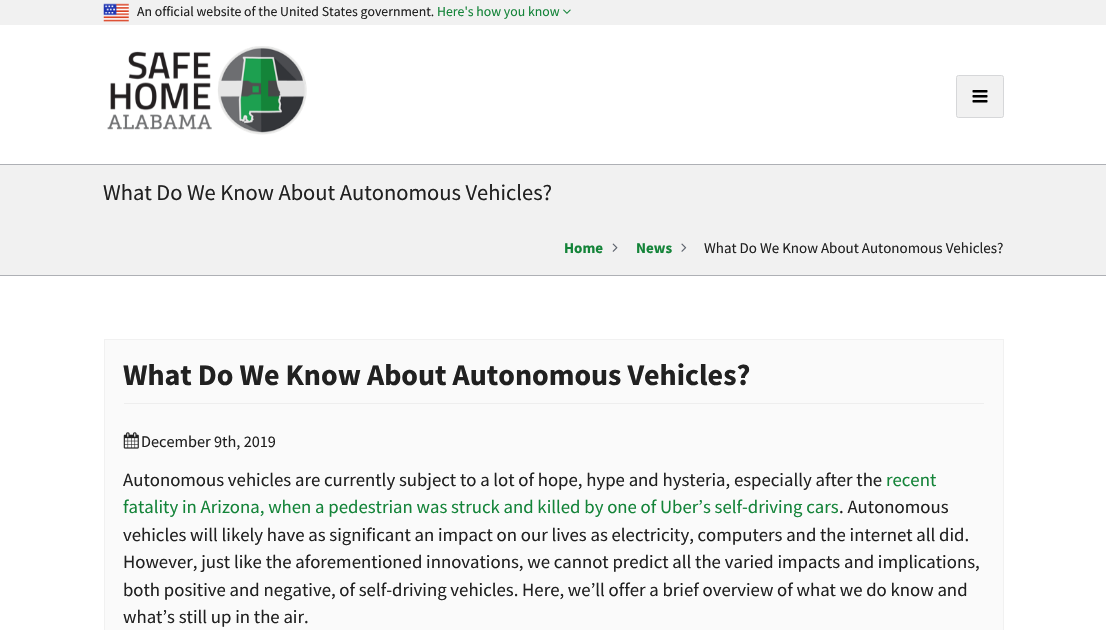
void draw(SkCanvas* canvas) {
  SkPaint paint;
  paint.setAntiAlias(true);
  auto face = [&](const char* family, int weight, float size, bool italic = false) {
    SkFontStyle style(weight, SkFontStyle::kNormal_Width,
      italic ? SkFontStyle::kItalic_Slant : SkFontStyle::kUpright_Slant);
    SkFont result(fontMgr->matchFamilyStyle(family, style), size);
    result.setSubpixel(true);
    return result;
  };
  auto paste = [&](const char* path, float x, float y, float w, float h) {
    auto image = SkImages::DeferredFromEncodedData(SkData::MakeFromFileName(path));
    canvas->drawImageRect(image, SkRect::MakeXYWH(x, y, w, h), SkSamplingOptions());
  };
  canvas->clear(0xffffffff);
  paint.setColor(0xfff1f1f1);
  canvas->drawRect(SkRect::MakeXYWH(0, 0, 1106, 25), paint);
  paste("img/1.png", 103, 3, 26, 19);
  paste("img/2.png", 563, 9, 8, 5);
  paint.setColor(0xffaeb0b5);
  canvas->drawRect(SkRect::MakeXYWH(0, 164, 1106, 1), paint);
  paste("img/3.png", 107, 46, 200, 89);
  paint.setColor(0xfff1f1f1);
  canvas->drawRoundRect(SkRect::MakeXYWH(956.5f, 75.5f, 47, 42), 2, 2, paint);
  paint.setStroke(true);
  paint.setStrokeWidth(1);
  paint.setColor(0xffd6d7d9);
  canvas->drawRoundRect(SkRect::MakeXYWH(956.5f, 75.5f, 47, 42), 2, 2, paint);
  paste("img/4.png", 972, 90, 16, 13);
  paint.setStroke(false);
  paint.setColor(0xfff1f1f1);
  canvas->drawRect(SkRect::MakeXYWH(0, 165, 1106, 110), paint);
  paint.setColor(0xffaeb0b5);
  canvas->drawRect(SkRect::MakeXYWH(0, 275, 1106, 1), paint);
  paste("img/5.png", 612, 243, 6, 9);
  paste("img/6.png", 681, 243, 6, 9);
  paint.setColor(0xfffafafa);
  canvas->drawRect(SkRect::MakeXYWH(104.5f, 339.5f, 899, 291), paint);
  paint.setStroke(true);
  paint.setColor(0xfff1f1f1);
  canvas->drawRect(SkRect::MakeXYWH(104.5f, 339.5f, 899, 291), paint);
  paint.setStroke(false);
  paint.setColor(0xffeeeeee);
  canvas->drawRect(SkRect::MakeXYWH(124, 403, 860, 1), paint);
  paste("img/7.png", 123, 432, 16, 17);
  auto f0 = face("Source Sans Pro", 400, 13.75f);
  paint.setColor(0xff212121);
  canvas->drawString("An official website of the United States government.", 137, 16, f0, paint);
  paint.setColor(0xff148439);
  canvas->drawString("Here's how you know", 437, 16, f0, paint);
  auto f1 = face("Source Sans Pro", 400, 22.5f);
  paint.setColor(0xff212121);
  canvas->drawString("What Do We Know About Autonomous Vehicles?", 103, 200, f1, paint);
  auto f2 = face("Source Sans Pro", 700, 15);
  paint.setColor(0xff148439);
  canvas->drawString("Home", 564, 253, f2, paint);
  canvas->drawString("News", 636, 253, f2, paint);
  auto f3 = face("Source Sans Pro", 400, 15);
  paint.setColor(0xff212121);
  canvas->drawString("What Do We Know About Autonomous Vehicles?", 704, 253, f3, paint);
  auto f4 = face("Source Sans Pro", 700, 30);
  canvas->drawString("What Do We Know About Autonomous Vehicles?", 123, 385, f4, paint);
  auto f5 = face("Source Sans Pro", 400, 16.25f);
  canvas->drawString("December 9th, 2019", 141, 447, f5, paint);
  auto f6 = face("Source Sans Pro", 400, 18.75f);
  canvas->drawString("Autonomous vehicles are currently subject to a lot of hope, hype and hysteria, especially after the", 123, 486, f6, paint);
  paint.setColor(0xff148439);
  canvas->drawString("recent", 886, 486, f6, paint);
  canvas->drawString("fatality in Arizona, when a pedestrian was struck and killed by one of Uber’s self-driving cars", 123, 513, f6, paint);
  paint.setColor(0xff212121);
  {
    const struct { const char* s; float x, y; } items[] = {
      {". Autonomous", 839, 513},
      {"vehicles will likely have as significant an impact on our lives as electricity, computers and the internet all did.", 123, 541},
      {"However, just like the aforementioned innovations, we cannot predict all the varied impacts and implications,", 123, 568},
      {"both positive and negative, of self-driving vehicles. Here, we’ll offer a brief overview of what we do know and", 123, 596},
      {"what’s still up in the air.", 123, 623},
    };
    for (auto [s, x, y] : items) {
      canvas->drawString(s, x, y, f6, paint);
    }
  }
}
